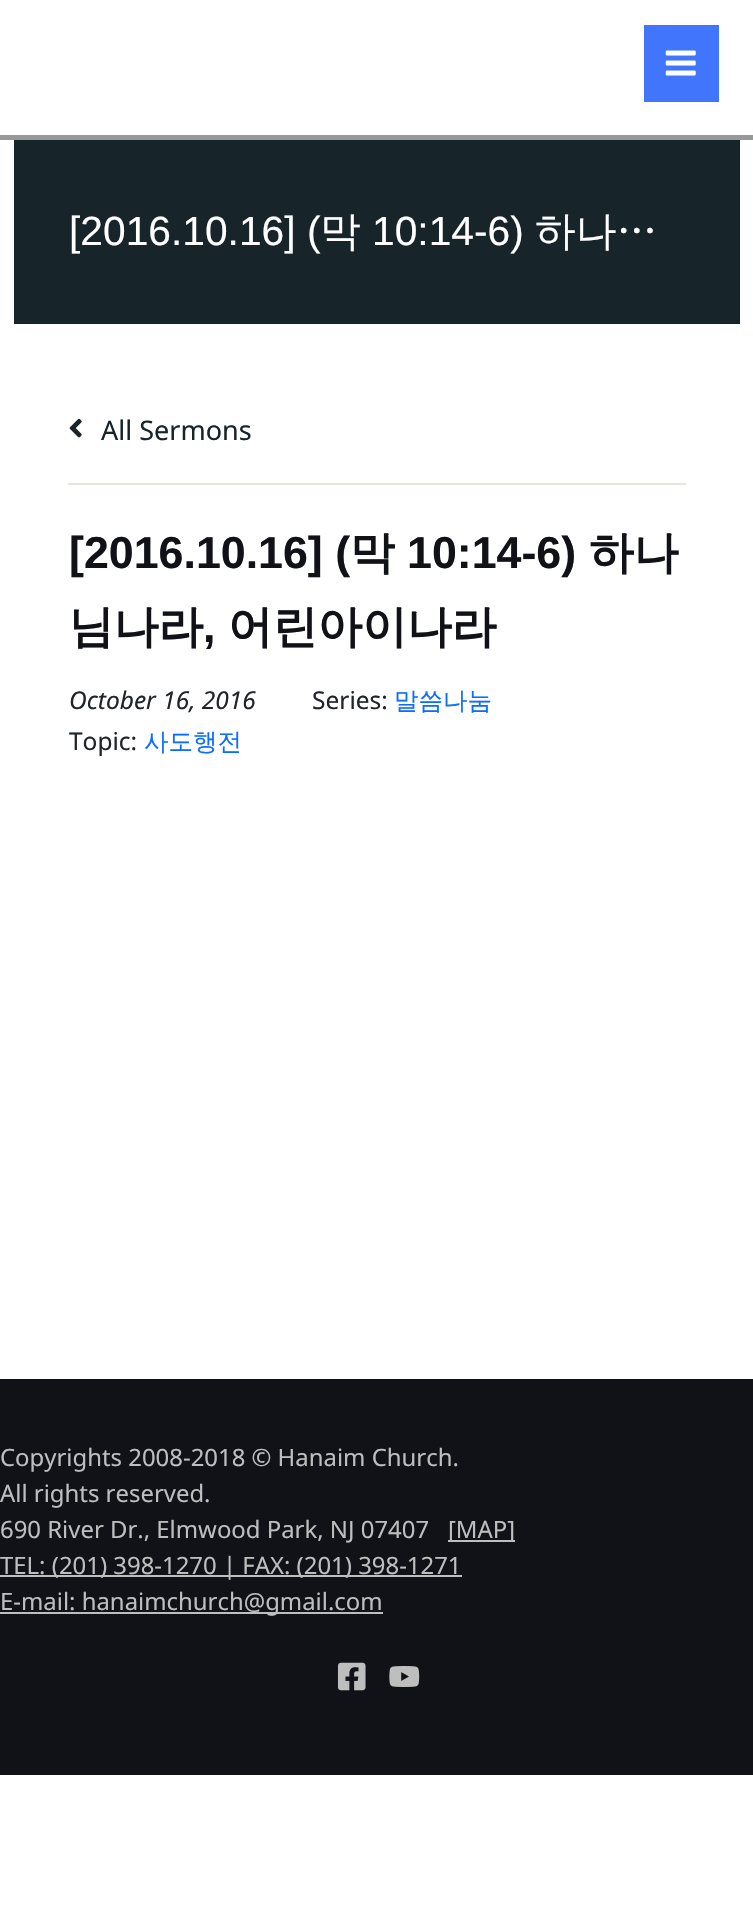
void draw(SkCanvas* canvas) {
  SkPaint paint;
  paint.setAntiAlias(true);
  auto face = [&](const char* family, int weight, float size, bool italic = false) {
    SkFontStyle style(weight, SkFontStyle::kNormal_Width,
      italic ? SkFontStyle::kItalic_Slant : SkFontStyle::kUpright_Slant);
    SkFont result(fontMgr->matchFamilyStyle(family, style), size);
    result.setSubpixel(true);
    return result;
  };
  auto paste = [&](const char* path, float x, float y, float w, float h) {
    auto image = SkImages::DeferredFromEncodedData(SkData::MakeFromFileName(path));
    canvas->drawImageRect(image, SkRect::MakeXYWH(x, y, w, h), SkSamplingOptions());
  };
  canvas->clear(0xffffffff);
  paint.setColor(0xff989898);
  canvas->drawRect(SkRect::MakeXYWH(0, 135, 753, 5), paint);
  paint.setColor(0xff4175fc);
  canvas->drawRect(SkRect::MakeXYWH(644, 25, 75, 77), paint);
  paste("img/1.png", 665, 50, 31, 26);
  paint.setColor(0xff17242a);
  canvas->drawRect(SkRect::MakeXYWH(14, 140, 726, 184), paint);
  paint.setColor(0xffe9e5de);
  canvas->drawRect(SkRect::MakeXYWH(68, 483, 618, 2), paint);
  paste("img/2.png", 69, 418, 13, 20);
  {
    const struct { float x, y, w, h; SkColor color; } items[] = {
      {0, 1379, 753, 396, 0xff101218},
      {448, 1540, 67, 2, 0xffbebebe},
      {0, 1575, 462, 2, 0xffbebebe},
      {0, 1612, 383, 2, 0xffbebebe},
    };
    for (auto [x, y, w, h, color] : items) {
      paint.setColor(color);
      canvas->drawRect(SkRect::MakeXYWH(x, y, w, h), paint);
    }
  }
  paste("img/3.png", 337, 1662, 29, 29);
  paste("img/4.png", 389, 1666, 31, 21);
  auto f0 = face("Liberation Sans", 400, 40.75f);
  paint.setColor(0xffffffff);
  canvas->drawString("[2016.10.16] (", 69, 245, f0, paint);
  auto f1 = face("WenQuanYi Zen Hei", 500, 40.75f);
  canvas->drawString("막", 320, 245, f1, paint);
  canvas->drawString("10:14-6)", 372, 245, f0, paint);
  canvas->drawString("하나…", 535, 245, f1, paint);
  auto f2 = face("Noto Sans", 400, 27);
  paint.setColor(0xff17242a);
  canvas->drawString("All Sermons", 101, 440, f2, paint);
  auto f3 = face("Liberation Sans", 700, 44.75f);
  paint.setColor(0xff101218);
  canvas->drawString("[2016.10.16] (", 69, 568, f3, paint);
  auto f4 = face("WenQuanYi Zen Hei", 700, 44.75f);
  canvas->drawString("막", 350, 568, f4, paint);
  canvas->drawString("10:14-6)", 407, 568, f3, paint);
  canvas->drawString("하나", 589, 568, f4, paint);
  canvas->drawString("님나라", 69, 642, f4, paint);
  canvas->drawString(",", 203, 642, f3, paint);
  canvas->drawString("어린아이나라", 228, 642, f4, paint);
  auto f5 = face("Noto Sans", 400, 24.5f, true);
  paint.setColor(0xff212529);
  canvas->drawString("October 16, 2016", 69, 709, f5, paint);
  auto f6 = face("Noto Sans", 400, 24.5f);
  canvas->drawString("Series:", 312, 709, f6, paint);
  auto f7 = face("WenQuanYi Zen Hei", 500, 24.5f);
  paint.setColor(0xff0d6efd);
  canvas->drawString("말씀나눔", 394, 709, f7, paint);
  paint.setColor(0xff212529);
  canvas->drawString("Topic:", 69, 750, f6, paint);
  paint.setColor(0xff0d6efd);
  canvas->drawString("사도행전", 144, 750, f7, paint);
  auto f8 = face("Noto Sans", 400, 23.9f);
  paint.setColor(0xffbebebe);
  {
    const struct { const char* s; float x, y; } items[] = {
      {"Copyrights 2008-2018 © Hanaim Church.", 0, 1466},
      {"All rights reserved.", 0, 1502},
      {"690 River Dr., Elmwood Park, NJ 07407", 0, 1538},
      {"[MAP]", 448, 1538},
      {"TEL: (201) 398-1270 | FAX: (201) 398-1271", 0, 1574},
      {"E-mail: hanaimchurch@gmail.com", 0, 1610},
    };
    for (auto [s, x, y] : items) {
      canvas->drawString(s, x, y, f8, paint);
    }
  }
}
